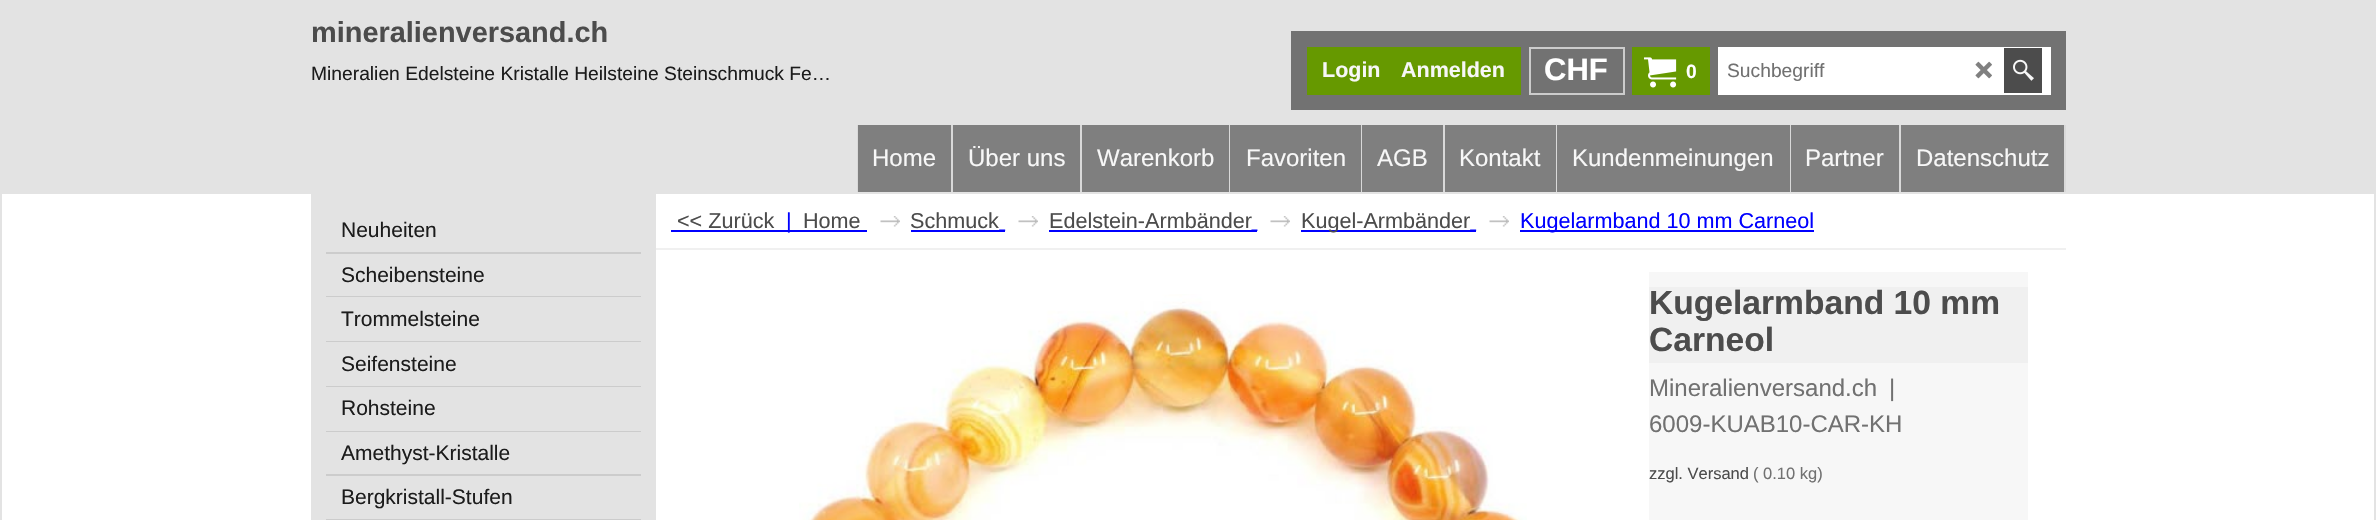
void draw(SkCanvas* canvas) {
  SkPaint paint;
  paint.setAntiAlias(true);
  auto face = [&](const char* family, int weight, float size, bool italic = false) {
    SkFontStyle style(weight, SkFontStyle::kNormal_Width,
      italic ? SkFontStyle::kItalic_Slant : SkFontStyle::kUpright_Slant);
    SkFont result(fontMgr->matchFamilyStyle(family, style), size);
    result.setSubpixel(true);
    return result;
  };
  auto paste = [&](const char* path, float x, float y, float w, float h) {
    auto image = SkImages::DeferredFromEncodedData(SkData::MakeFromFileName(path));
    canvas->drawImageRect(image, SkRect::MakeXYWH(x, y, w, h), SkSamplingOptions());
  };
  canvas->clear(0xffffffff);
  paint.setStroke(true);
  paint.setStrokeWidth(2);
  paint.setColor(0xffe3e3e3);
  canvas->drawRect(SkRect::MakeXYWH(1, 1, 2374, 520), paint);
  paint.setStroke(false);
  {
    const struct { float x, y, w, h; SkColor color; } items[] = {
      {2, 2, 2372, 192, 0xffe3e3e3},
      {1291, 31, 775, 79, 0xff727272},
      {1307, 47, 214, 48, 0xff669900},
    };
    for (auto [x, y, w, h, color] : items) {
      paint.setColor(color);
      canvas->drawRect(SkRect::MakeXYWH(x, y, w, h), paint);
    }
  }
  paint.setStroke(true);
  paint.setColor(0xffcccccc);
  canvas->drawRect(SkRect::MakeXYWH(1530, 48, 94, 46), paint);
  paint.setStroke(false);
  paint.setColor(0xff669900);
  canvas->drawRect(SkRect::MakeXYWH(1632, 47, 78, 48), paint);
  paste("img/1.png", 1644, 57, 33, 31);
  paint.setColor(0xffffffff);
  canvas->drawRect(SkRect::MakeXYWH(1718, 47, 333, 48), paint);
  paste("img/2.png", 1975, 61, 17, 18);
  paint.setColor(0xff4c4c4c);
  canvas->drawRect(SkRect::MakeXYWH(2004, 48, 38, 45), paint);
  paste("img/3.png", 2013, 59, 21, 22);
  {
    const struct { float x, y, w, h; SkColor color; } items[] = {
      {953, 125, 1111, 67, 0xff7f7f7f},
      {857, 125, 1, 67, 0xffd9d9d9},
      {858, 125, 93, 67, 0xff7f7f7f},
      {951, 125, 2, 67, 0xffd9d9d9},
      {1080, 125, 2, 67, 0xffd9d9d9},
      {1229, 125, 1, 67, 0xffd9d9d9},
      {1361, 125, 1, 67, 0xffd9d9d9},
      {1443, 125, 2, 67, 0xffd9d9d9},
      {1556, 125, 1, 67, 0xffd9d9d9},
      {1790, 125, 1, 67, 0xffd9d9d9},
      {1899, 125, 2, 67, 0xffd9d9d9},
      {2064, 125, 2, 67, 0xffd9d9d9},
      {311, 194, 345, 326, 0xffe3e3e3},
      {326, 252, 315, 2, 0xffcccccc},
      {326, 296, 315, 1, 0xffcccccc},
      {326, 341, 315, 1, 0xffcccccc},
      {326, 386, 315, 1, 0xffcccccc},
      {326, 431, 315, 1, 0xffcccccc},
      {326, 474, 315, 2, 0xffcccccc},
      {326, 519, 315, 1, 0xffcccccc},
      {656, 248, 1410, 2, 0xfff0f0f0},
      {671, 230, 196, 2, 0xff0000ff},
    };
    for (auto [x, y, w, h, color] : items) {
      paint.setColor(color);
      canvas->drawRect(SkRect::MakeXYWH(x, y, w, h), paint);
    }
  }
  paste("img/4.png", 880, 216, 20, 11);
  paste("img/5.png", 999, 216, 39, 15);
  canvas->drawRect(SkRect::MakeXYWH(911, 230, 94, 2), paint);
  paste("img/6.png", 1251, 216, 39, 15);
  canvas->drawRect(SkRect::MakeXYWH(1049, 230, 208, 2), paint);
  paste("img/7.png", 1470, 216, 39, 15);
  canvas->drawRect(SkRect::MakeXYWH(1301, 230, 175, 2), paint);
  canvas->drawRect(SkRect::MakeXYWH(1520, 230, 294, 2), paint);
  paste("img/8.png", 799, 294, 728, 226);
  paint.setColor(0xfff7f7f7);
  canvas->drawRect(SkRect::MakeXYWH(1649, 272, 379, 248), paint);
  paint.setColor(0xfff0f0f0);
  canvas->drawRect(SkRect::MakeXYWH(1649, 287, 379, 76), paint);
  auto f0 = face("Liberation Sans", 700, 28.9f);
  paint.setColor(0xff4c4c4c);
  canvas->drawString("mineralienversand.ch", 311, 42, f0, paint);
  auto f1 = face("Liberation Sans", 400, 19.25f);
  paint.setColor(0xff1c1c1c);
  canvas->drawString("Mineralien Edelsteine Kristalle Heilsteine Steinschmuck Fe…", 311, 80, f1, paint);
  auto f2 = face("Liberation Sans", 700, 21.5f);
  paint.setColor(0xfff7f7f7);
  canvas->drawString("Login", 1322, 77, f2, paint);
  canvas->drawString("Anmelden", 1401, 77, f2, paint);
  auto f3 = face("Liberation Sans", 700, 31);
  paint.setColor(0xffffffff);
  canvas->drawString("CHF", 1544, 80, f3, paint);
  auto f4 = face("Liberation Sans", 700, 19.25f);
  canvas->drawString("0", 1686, 78, f4, paint);
  paint.setColor(0xff717171);
  canvas->drawString("Suchbegriff", 1727, 77, f1, paint);
  auto f5 = face("Liberation Sans", 400, 24);
  paint.setColor(0xfff7f7f7);
  {
    const struct { const char* s; float x, y; } items[] = {
      {"Home", 872, 166},
      {"Über uns", 968, 166},
      {"Warenkorb", 1097, 166},
      {"Favoriten", 1246, 166},
      {"AGB", 1377, 166},
      {"Kontakt", 1459, 166},
      {"Kundenmeinungen", 1572, 166},
      {"Partner", 1805, 166},
      {"Datenschutz", 1916, 166},
    };
    for (auto [s, x, y] : items) {
      canvas->drawString(s, x, y, f5, paint);
    }
  }
  auto f6 = face("Liberation Sans", 400, 21);
  paint.setColor(0xff1c1c1c);
  {
    const struct { const char* s; float x, y; } items[] = {
      {"Neuheiten", 341, 237},
      {"Scheibensteine", 341, 282},
      {"Trommelsteine", 341, 326},
      {"Seifensteine", 341, 371},
      {"Rohsteine", 341, 415},
      {"Amethyst-Kristalle", 341, 460},
      {"Bergkristall-Stufen", 341, 504},
    };
    for (auto [s, x, y] : items) {
      canvas->drawString(s, x, y, f6, paint);
    }
  }
  auto f7 = face("Liberation Sans", 400, 21.6f);
  paint.setColor(0xff4c4c4c);
  canvas->drawString("<< Zurück", 677, 228, f7, paint);
  paint.setColor(0xff0000ff);
  canvas->drawString("|", 786, 228, f7, paint);
  paint.setColor(0xff4c4c4c);
  {
    const struct { const char* s; float x, y; } items[] = {
      {"Home", 803, 228},
      {"Schmuck", 910, 228},
      {"Edelstein-Armbänder", 1049, 228},
      {"Kugel-Armbänder", 1301, 228},
    };
    for (auto [s, x, y] : items) {
      canvas->drawString(s, x, y, f7, paint);
    }
  }
  paint.setColor(0xff0000ff);
  canvas->drawString("Kugelarmband 10 mm Carneol", 1520, 228, f7, paint);
  auto f8 = face("Liberation Sans", 700, 33.6f);
  paint.setColor(0xff4c4c4c);
  canvas->drawString("Kugelarmband 10 mm", 1649, 314, f8, paint);
  canvas->drawString("Carneol", 1649, 351, f8, paint);
  paint.setColor(0xff717171);
  {
    const struct { const char* s; float x, y; } items[] = {
      {"Mineralienversand.ch", 1649, 396},
      {"|", 1889, 396},
      {"6009-KUAB10-CAR-KH", 1649, 432},
    };
    for (auto [s, x, y] : items) {
      canvas->drawString(s, x, y, f5, paint);
    }
  }
  auto f9 = face("Liberation Sans", 400, 16.5f);
  paint.setColor(0xff4c4c4c);
  canvas->drawString("zzgl. Versand", 1649, 479, f9, paint);
  paint.setColor(0xff717171);
  canvas->drawString("( 0.10 kg)", 1753, 479, f9, paint);
}
